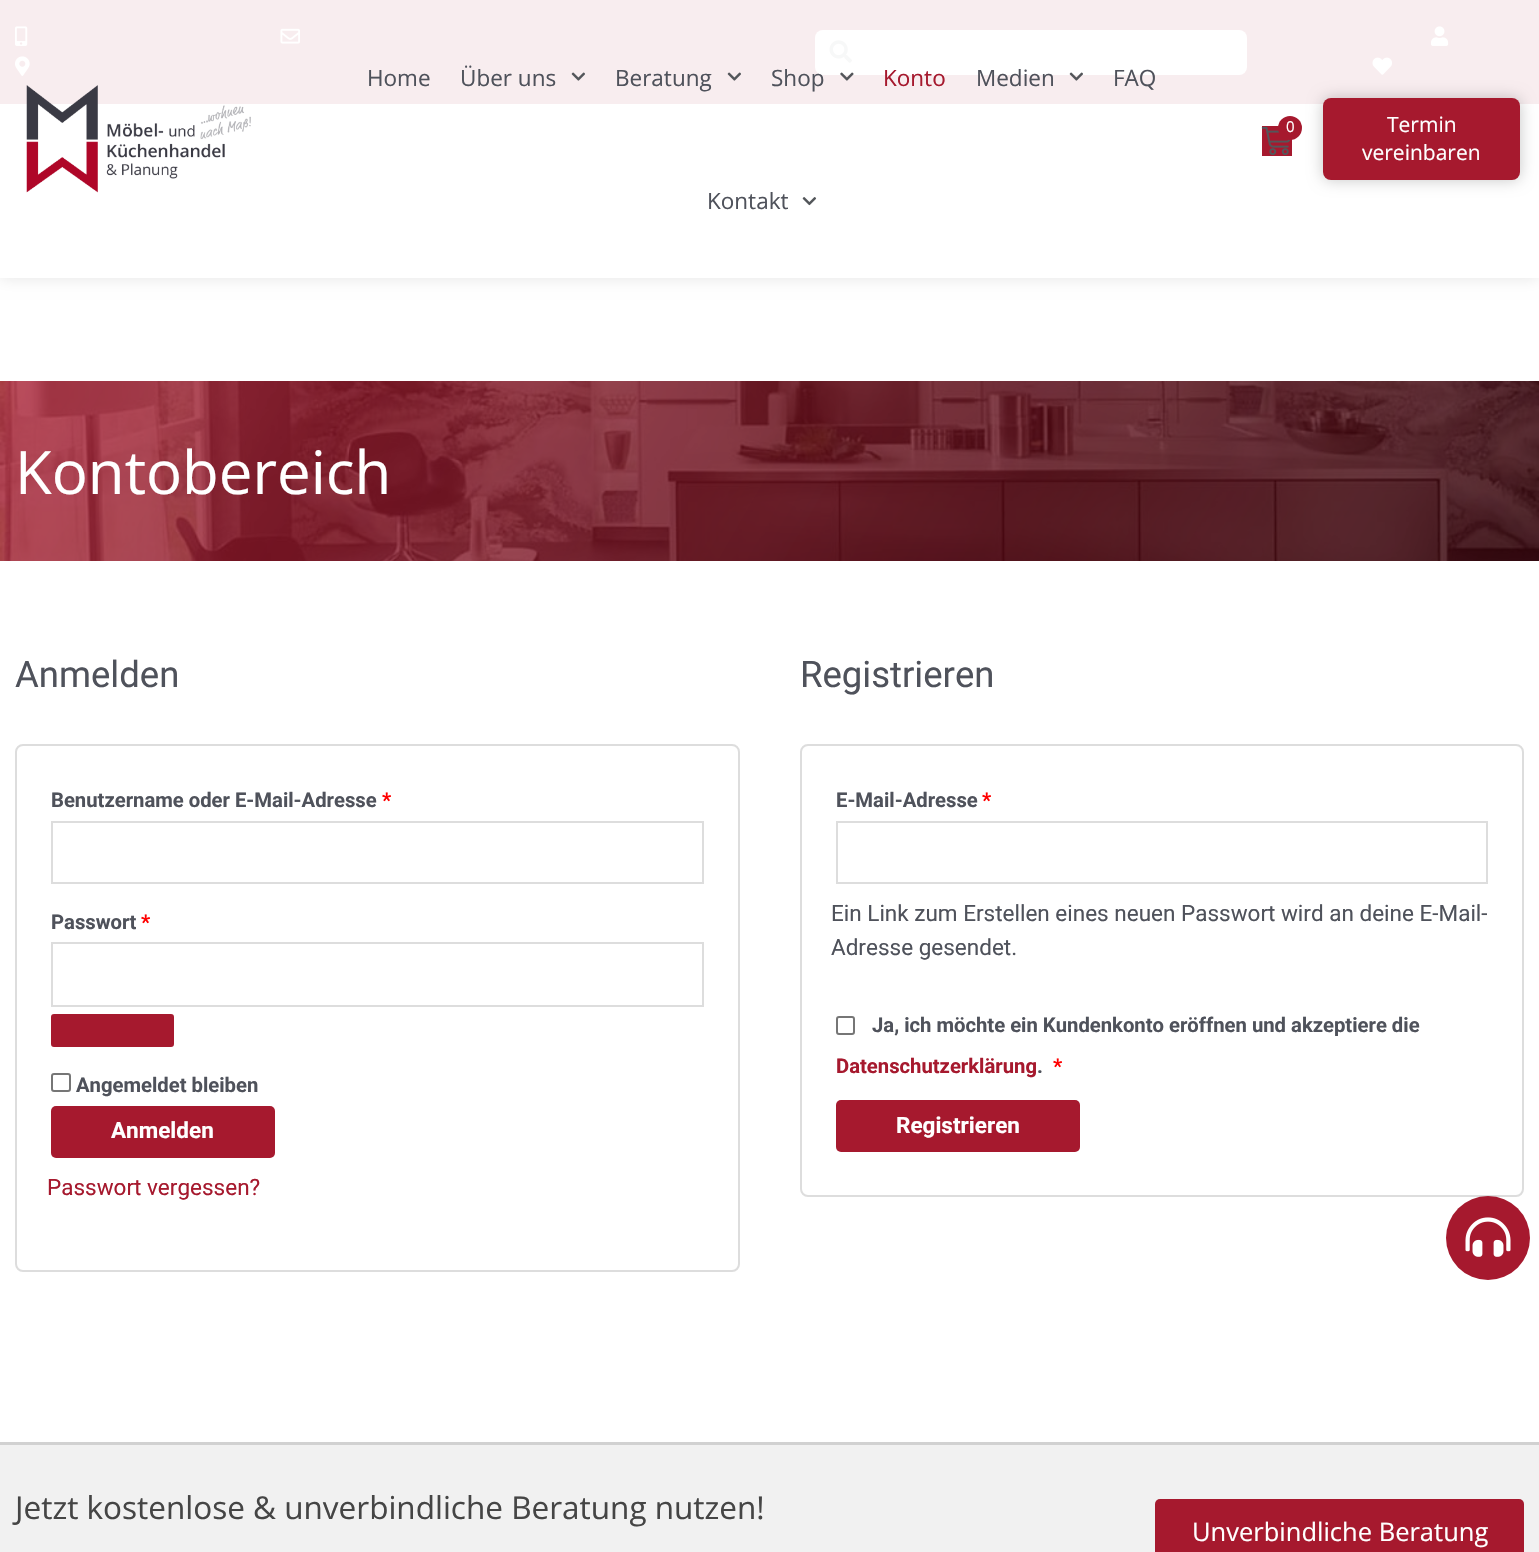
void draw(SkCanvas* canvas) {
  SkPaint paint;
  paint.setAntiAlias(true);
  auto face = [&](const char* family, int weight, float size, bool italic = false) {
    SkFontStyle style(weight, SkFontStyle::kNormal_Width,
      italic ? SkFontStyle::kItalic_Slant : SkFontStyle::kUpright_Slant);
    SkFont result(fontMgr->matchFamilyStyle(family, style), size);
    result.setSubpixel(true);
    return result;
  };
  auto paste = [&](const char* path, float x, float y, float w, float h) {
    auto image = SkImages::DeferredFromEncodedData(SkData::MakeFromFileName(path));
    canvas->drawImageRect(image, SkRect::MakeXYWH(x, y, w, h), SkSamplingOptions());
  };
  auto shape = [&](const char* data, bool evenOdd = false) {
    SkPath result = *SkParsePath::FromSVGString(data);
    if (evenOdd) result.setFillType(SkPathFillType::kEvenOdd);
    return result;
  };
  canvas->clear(0xffffffff);
  paint.setColor(0xffa6192e);
  canvas->drawRect(SkRect::MakeXYWH(0, 0, 1539, 104), paint);
  paste("img/1.png", 15, 26, 13, 20);
  paste("img/2.png", 280, 28, 20, 16);
  paste("img/3.png", 15, 56, 15, 20);
  paint.setColor(0xffffffff);
  canvas->drawRoundRect(SkRect::MakeXYWH(815, 30, 432, 45), 8, 8, paint);
  paste("img/4.png", 829, 40, 23, 23);
  paste("img/5.png", 1431, 26, 18, 20);
  paste("img/6.png", 1372, 57, 20, 18);
  canvas->save();
  canvas->clipPath(shape("M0 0H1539V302H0ZM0 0H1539V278H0Z", true), true);
  paint.setColor(0x1a000000);
  paint.setMaskFilter(SkMaskFilter::MakeBlur(kNormal_SkBlurStyle, 7.5f));
  canvas->drawRect(SkRect::MakeXYWH(0, 0, 1539, 278), paint);
  paint.setMaskFilter(nullptr);
  canvas->restore();
  paint.setColor(0xebffffff);
  canvas->drawRect(SkRect::MakeXYWH(0, 0, 1539, 278), paint);
  paste("img/7.png", 26, 85, 225, 108);
  paste("img/8.png", 571, 72, 14, 9);
  paste("img/8.png", 727, 72, 14, 9);
  paste("img/9.png", 840, 72, 14, 9);
  paste("img/10.png", 1069, 72, 14, 9);
  paste("img/11.png", 802, 197, 15, 9);
  paint.setColor(0xffa6192e);
  canvas->drawRect(SkRect::MakeXYWH(1262, 126, 30, 30), paint);
  paste("img/12.png", 1261, 126, 30, 29);
  canvas->drawCircle(1290, 128, 12, paint);
  paint.setColor(0x38000000);
  paint.setMaskFilter(SkMaskFilter::MakeBlur(kNormal_SkBlurStyle, 7.5f));
  canvas->drawRoundRect(SkRect::MakeXYWH(1323, 98, 197, 82), 8, 8, paint);
  paint.setMaskFilter(nullptr);
  paint.setColor(0xffa6192e);
  canvas->drawRoundRect(SkRect::MakeXYWH(1323, 98, 197, 82), 8, 8, paint);
  {
    const SkColor colors[] = {0xffa6192e, 0xff330008};
    const float stops[] = {0, 1};
    const SkPoint ends[] = {{153, 115}, {1386, 827}};
    paint.setShader(SkGradientShader::MakeLinear(ends, colors, stops, 2, SkTileMode::kClamp));
    paint.setAlpha(255);
  }
  canvas->drawRect(SkRect::MakeXYWH(0, 381, 1539, 180), paint);
  paste("img/13.png", 0, 381, 1539, 180);
  paint.setStroke(true);
  paint.setStrokeWidth(2);
  paint.setShader(nullptr);
  paint.setColor(0xffdddddd);
  canvas->drawRoundRect(SkRect::MakeXYWH(16, 745, 723, 526), 7, 7, paint);
  canvas->drawRect(SkRect::MakeXYWH(52, 822, 651, 61), paint);
  canvas->drawRect(SkRect::MakeXYWH(52, 943, 651, 63), paint);
  paint.setStroke(false);
  paint.setColor(0xffa6192e);
  canvas->drawRoundRect(SkRect::MakeXYWH(52, 1015, 121, 31), 2, 2, paint);
  paint.setStroke(true);
  canvas->drawRoundRect(SkRect::MakeXYWH(52, 1015, 121, 31), 2, 2, paint);
  paint.setColor(0xff767676);
  canvas->drawRoundRect(SkRect::MakeXYWH(52, 1074, 18, 17), 2, 2, paint);
  paint.setStroke(false);
  paint.setColor(0xffa6192e);
  canvas->drawRoundRect(SkRect::MakeXYWH(51, 1106, 224, 52), 5, 5, paint);
  paint.setStroke(true);
  paint.setColor(0xffdddddd);
  canvas->drawRoundRect(SkRect::MakeXYWH(801, 745, 722, 451), 7, 7, paint);
  canvas->drawRect(SkRect::MakeXYWH(837, 822, 650, 61), paint);
  paint.setColor(0xff767676);
  canvas->drawRoundRect(SkRect::MakeXYWH(837, 1017, 17, 17), 2, 2, paint);
  paint.setStroke(false);
  paint.setColor(0xffa6192e);
  canvas->drawRoundRect(SkRect::MakeXYWH(836, 1100, 244, 52), 5, 5, paint);
  canvas->drawCircle(1488, 1238, 42, paint);
  paste("img/14.png", 1465, 1217, 46, 40);
  paint.setColor(0xfff1f1f1);
  canvas->drawRect(SkRect::MakeXYWH(0, 1445, 1539, 107), paint);
  paint.setColor(0xffd1d1d1);
  canvas->drawRect(SkRect::MakeXYWH(0, 1442, 1539, 3), paint);
  paint.setColor(0xffa6192e);
  canvas->drawRoundRect(SkRect::MakeXYWH(1155, 1499, 369, 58), 5, 5, paint);
  auto f0 = face("Open Sans", 400, 22.5f);
  paint.setColor(0xff4f525b);
  {
    const struct { const char* s; float x, y; } items[] = {
      {"Home", 367, 86},
      {"Über uns", 460, 86},
      {"Beratung", 615, 86},
      {"Shop", 771, 86},
    };
    for (auto [s, x, y] : items) {
      canvas->drawString(s, x, y, f0, paint);
    }
  }
  paint.setColor(0xffa6192e);
  canvas->drawString("Konto", 883, 86, f0, paint);
  paint.setColor(0xff4f525b);
  {
    const struct { const char* s; float x, y; } items[] = {
      {"Medien", 976, 86},
      {"FAQ", 1113, 86},
      {"Kontakt", 707, 209},
    };
    for (auto [s, x, y] : items) {
      canvas->drawString(s, x, y, f0, paint);
    }
  }
  auto f1 = face("Open Sans", 400, 15);
  paint.setColor(0xffffffff);
  canvas->drawString("0", 1286, 132, f1, paint);
  auto f2 = face("Open Sans", 400, 21);
  canvas->drawString("Termin", 1387, 132, f2, paint);
  canvas->drawString("vereinbaren", 1362, 160, f2, paint);
  auto f3 = face("Open Sans", 400, 60);
  canvas->drawString("Kontobereich", 15, 494, f3, paint);
  auto f4 = face("Roboto", 400, 36.5f);
  paint.setColor(0xff4f525b);
  canvas->drawString("Anmelden", 15, 687, f4, paint);
  auto f5 = face("Roboto", 700, 20.25f);
  canvas->drawString("Benutzername oder E-Mail-Adresse", 51, 807, f5, paint);
  paint.setColor(0xffff0000);
  canvas->drawString("*", 382, 807, f5, paint);
  paint.setColor(0xff4f525b);
  canvas->drawString("Passwort", 51, 929, f5, paint);
  paint.setColor(0xffff0000);
  canvas->drawString("*", 141, 929, f5, paint);
  paint.setColor(0xff4f525b);
  canvas->drawString("Angemeldet bleiben", 76, 1092, f5, paint);
  auto f6 = face("Roboto", 700, 22.5f);
  paint.setColor(0xffffffff);
  canvas->drawString("Anmelden", 111, 1138, f6, paint);
  auto f7 = face("Roboto", 400, 22.5f);
  paint.setColor(0xffa6192e);
  canvas->drawString("Passwort vergessen?", 47, 1195, f7, paint);
  paint.setColor(0xff4f525b);
  canvas->drawString("Registrieren", 800, 687, f4, paint);
  canvas->drawString("E-Mail-Adresse", 836, 807, f5, paint);
  paint.setColor(0xffff0000);
  canvas->drawString("*", 982, 807, f5, paint);
  paint.setColor(0xff4f525b);
  canvas->drawString("Ein Link zum Erstellen eines neuen Passwort wird an deine E-Mail-", 831, 921, f7, paint);
  canvas->drawString("Adresse gesendet.", 831, 955, f7, paint);
  canvas->drawString("Ja, ich möchte ein Kundenkonto eröffnen und akzeptiere die", 872, 1032, f5, paint);
  paint.setColor(0xffa6192e);
  canvas->drawString("Datenschutzerklärung", 836, 1073, f5, paint);
  paint.setColor(0xffff0000);
  canvas->drawString("*", 1053, 1073, f5, paint);
  paint.setColor(0xff4f525b);
  canvas->drawString(".", 1037, 1073, f5, paint);
  paint.setColor(0xffffffff);
  canvas->drawString("Registrieren", 896, 1133, f6, paint);
  auto f8 = face("Open Sans", 400, 31.5f);
  paint.setColor(0xff454545);
  canvas->drawString("Jetzt kostenlose & unverbindliche Beratung nutzen!", 15, 1519, f8, paint);
  auto f9 = face("Open Sans", 400, 25.5f);
  paint.setColor(0xffffffff);
  canvas->drawString("Unverbindliche Beratung", 1192, 1541, f9, paint);
}
